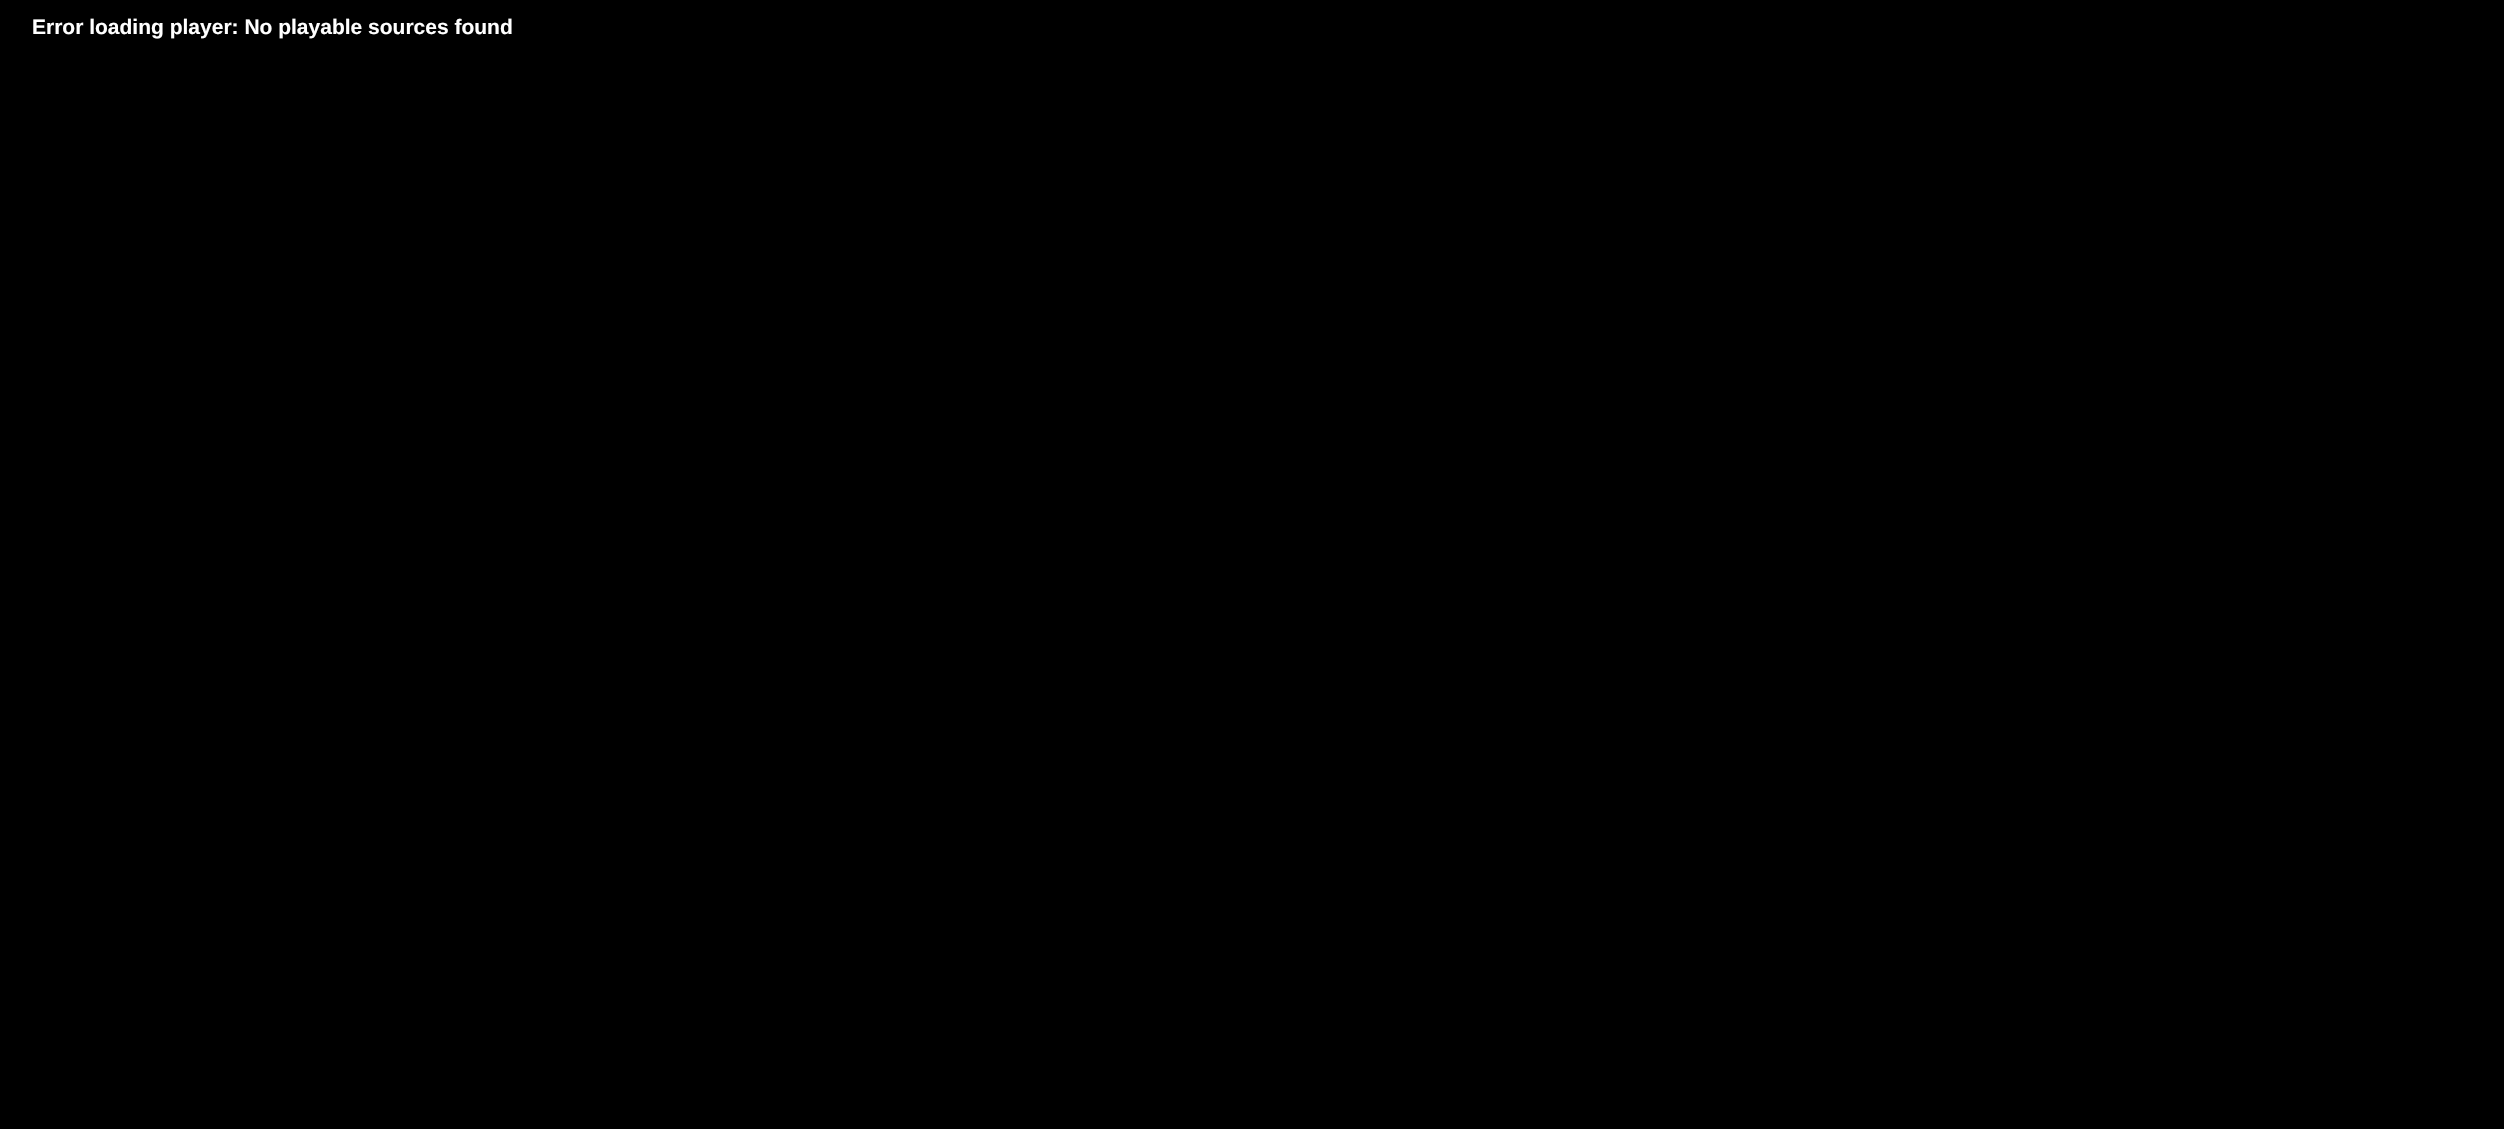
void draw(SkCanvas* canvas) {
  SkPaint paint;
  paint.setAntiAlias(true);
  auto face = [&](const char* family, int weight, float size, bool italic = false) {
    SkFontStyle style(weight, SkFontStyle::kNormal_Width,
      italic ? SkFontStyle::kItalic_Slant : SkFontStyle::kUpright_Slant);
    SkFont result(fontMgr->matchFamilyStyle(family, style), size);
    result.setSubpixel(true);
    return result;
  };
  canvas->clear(0xff000000);
  auto f0 = face("Liberation Sans", 700, 21);
  paint.setColor(0xffffffff);
  canvas->drawString("Error loading player: No playable sources found", 32, 34, f0, paint);
}
